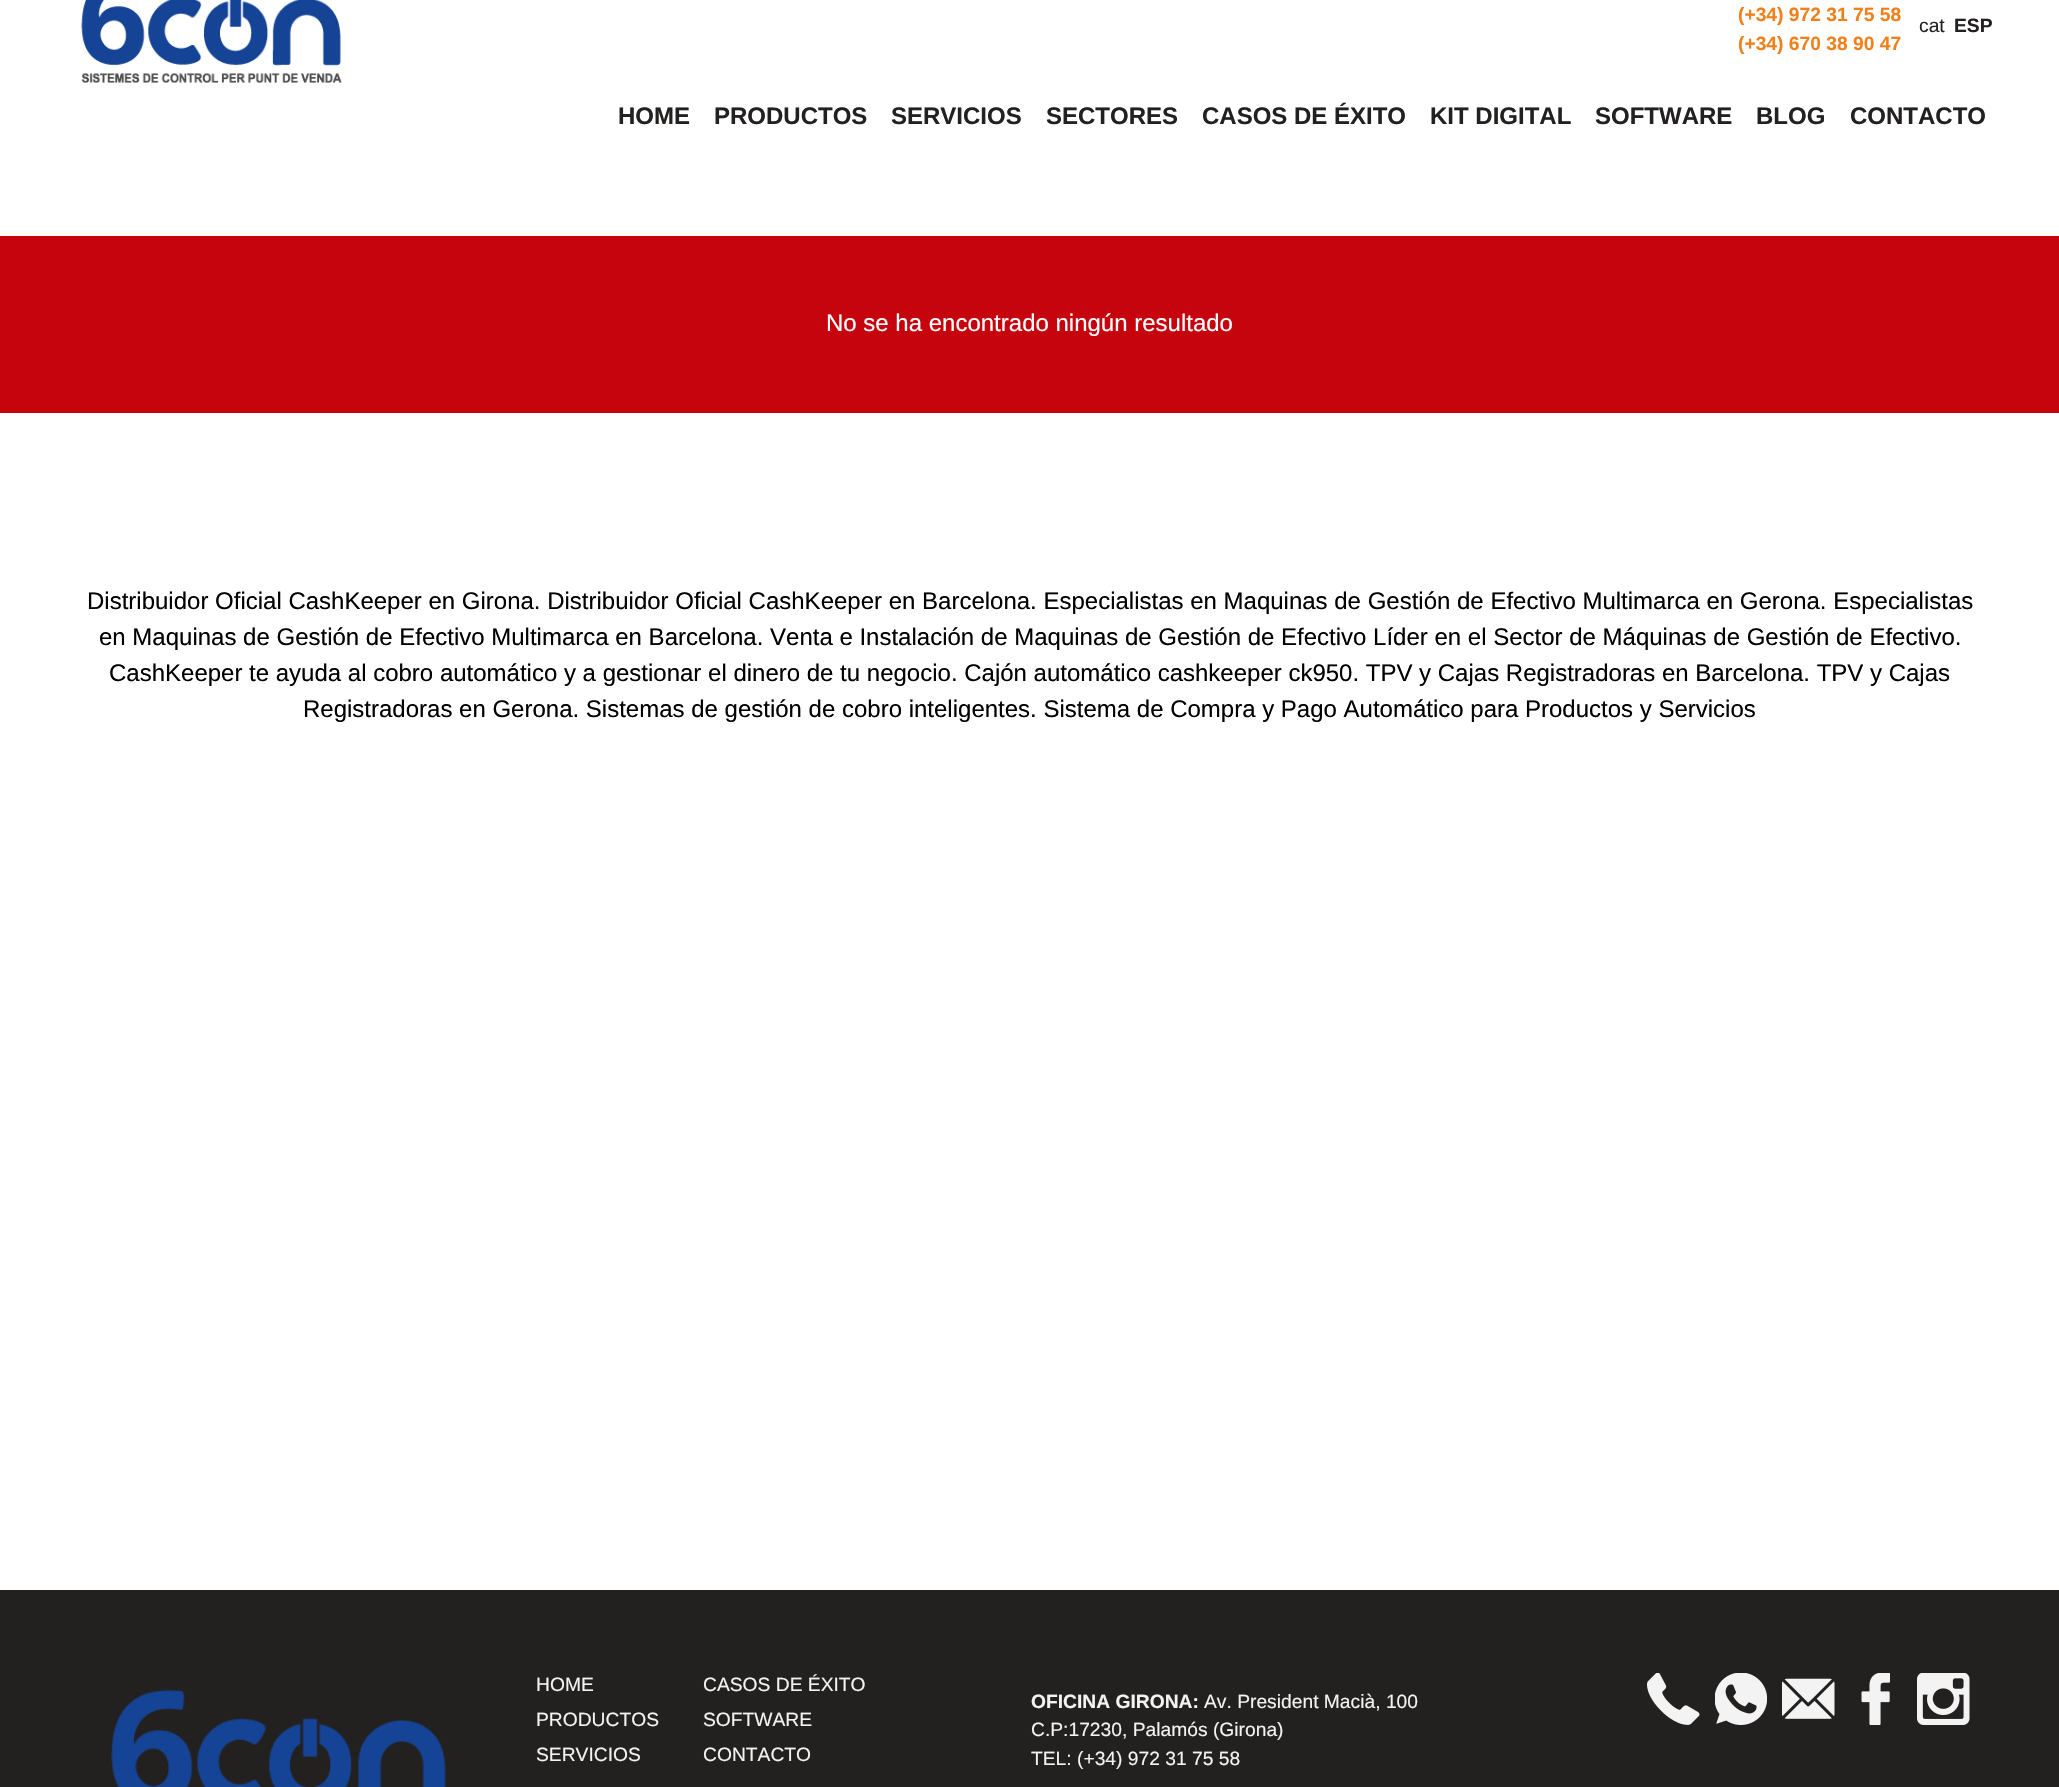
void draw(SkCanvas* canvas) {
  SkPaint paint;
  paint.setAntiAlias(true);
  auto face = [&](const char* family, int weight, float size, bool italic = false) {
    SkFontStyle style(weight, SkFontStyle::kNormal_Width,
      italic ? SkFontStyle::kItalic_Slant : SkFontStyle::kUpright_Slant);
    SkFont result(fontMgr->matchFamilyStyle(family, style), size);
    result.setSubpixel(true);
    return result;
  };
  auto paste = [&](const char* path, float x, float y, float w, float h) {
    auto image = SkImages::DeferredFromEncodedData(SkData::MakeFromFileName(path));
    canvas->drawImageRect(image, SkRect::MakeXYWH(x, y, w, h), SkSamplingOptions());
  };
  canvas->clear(0xffffffff);
  paste("img/1.png", 81, 0, 261, 83);
  paint.setColor(0xffc6040e);
  canvas->drawRect(SkRect::MakeXYWH(0, 236, 2059, 177), paint);
  paint.setColor(0xff232020);
  canvas->drawRect(SkRect::MakeXYWH(0, 1590, 2059, 197), paint);
  paste("img/2.png", 111, 1689, 335, 98);
  paste("img/3.png", 1647, 1673, 53, 52);
  paste("img/4.png", 1715, 1673, 52, 52);
  paste("img/5.png", 1782, 1678, 53, 41);
  paste("img/6.png", 1861, 1673, 29, 52);
  paste("img/7.png", 1917, 1673, 53, 52);
  auto f0 = face("Arimo", 700, 19.25f);
  paint.setColor(0xfff08019);
  canvas->drawString("(+34) 972 31 75 58", 1738, 21, f0, paint);
  canvas->drawString("(+34) 670 38 90 47", 1738, 50, f0, paint);
  auto f1 = face("Arimo", 400, 19.25f);
  paint.setColor(0xff232020);
  canvas->drawString("cat", 1919, 32, f1, paint);
  canvas->drawString("ESP", 1954, 32, f0, paint);
  auto f2 = face("Arimo", 700, 24);
  {
    const struct { const char* s; float x, y; } items[] = {
      {"HOME", 618, 124},
      {"PRODUCTOS", 714, 124},
      {"SERVICIOS", 891, 124},
      {"SECTORES", 1046, 124},
      {"CASOS DE ÉXITO", 1202, 124},
      {"KIT DIGITAL", 1430, 124},
      {"SOFTWARE", 1595, 124},
      {"BLOG", 1756, 124},
      {"CONTACTO", 1850, 124},
    };
    for (auto [s, x, y] : items) {
      canvas->drawString(s, x, y, f2, paint);
    }
  }
  auto f3 = face("Arimo", 400, 24);
  paint.setColor(0xffffffff);
  canvas->drawString("No se ha encontrado ningún resultado", 826, 331, f3, paint);
  paint.setColor(0xff000000);
  {
    const struct { const char* s; float x, y; } items[] = {
      {"Distribuidor Oficial CashKeeper en Girona. Distribuidor Oficial CashKeeper en Barcelona. Especialistas en Maquinas de Gestión de Efectivo Multimarca en Gerona. Especialistas", 87, 609},
      {"en Maquinas de Gestión de Efectivo Multimarca en Barcelona. Venta e Instalación de Maquinas de Gestión de Efectivo Líder en el Sector de Máquinas de Gestión de Efectivo.", 99, 645},
      {"CashKeeper te ayuda al cobro automático y a gestionar el dinero de tu negocio. Cajón automático cashkeeper ck950. TPV y Cajas Registradoras en Barcelona. TPV y Cajas", 109, 681},
      {"Registradoras en Gerona. Sistemas de gestión de cobro inteligentes. Sistema de Compra y Pago Automático para Productos y Servicios", 303, 717},
    };
    for (auto [s, x, y] : items) {
      canvas->drawString(s, x, y, f3, paint);
    }
  }
  paint.setColor(0xfff3f3f3);
  {
    const struct { const char* s; float x, y; } items[] = {
      {"HOME", 536, 1691},
      {"PRODUCTOS", 536, 1726},
      {"SERVICIOS", 536, 1761},
      {"CASOS DE ÉXITO", 703, 1691},
      {"SOFTWARE", 703, 1726},
      {"CONTACTO", 703, 1761},
    };
    for (auto [s, x, y] : items) {
      canvas->drawString(s, x, y, f1, paint);
    }
  }
  canvas->drawString("OFICINA GIRONA:", 1031, 1708, f0, paint);
  {
    const struct { const char* s; float x, y; } items[] = {
      {"Av. President Macià, 100", 1204, 1708},
      {"C.P:17230, Palamós (Girona)", 1031, 1736},
      {"TEL: (+34) 972 31 75 58", 1031, 1765},
    };
    for (auto [s, x, y] : items) {
      canvas->drawString(s, x, y, f1, paint);
    }
  }
}
